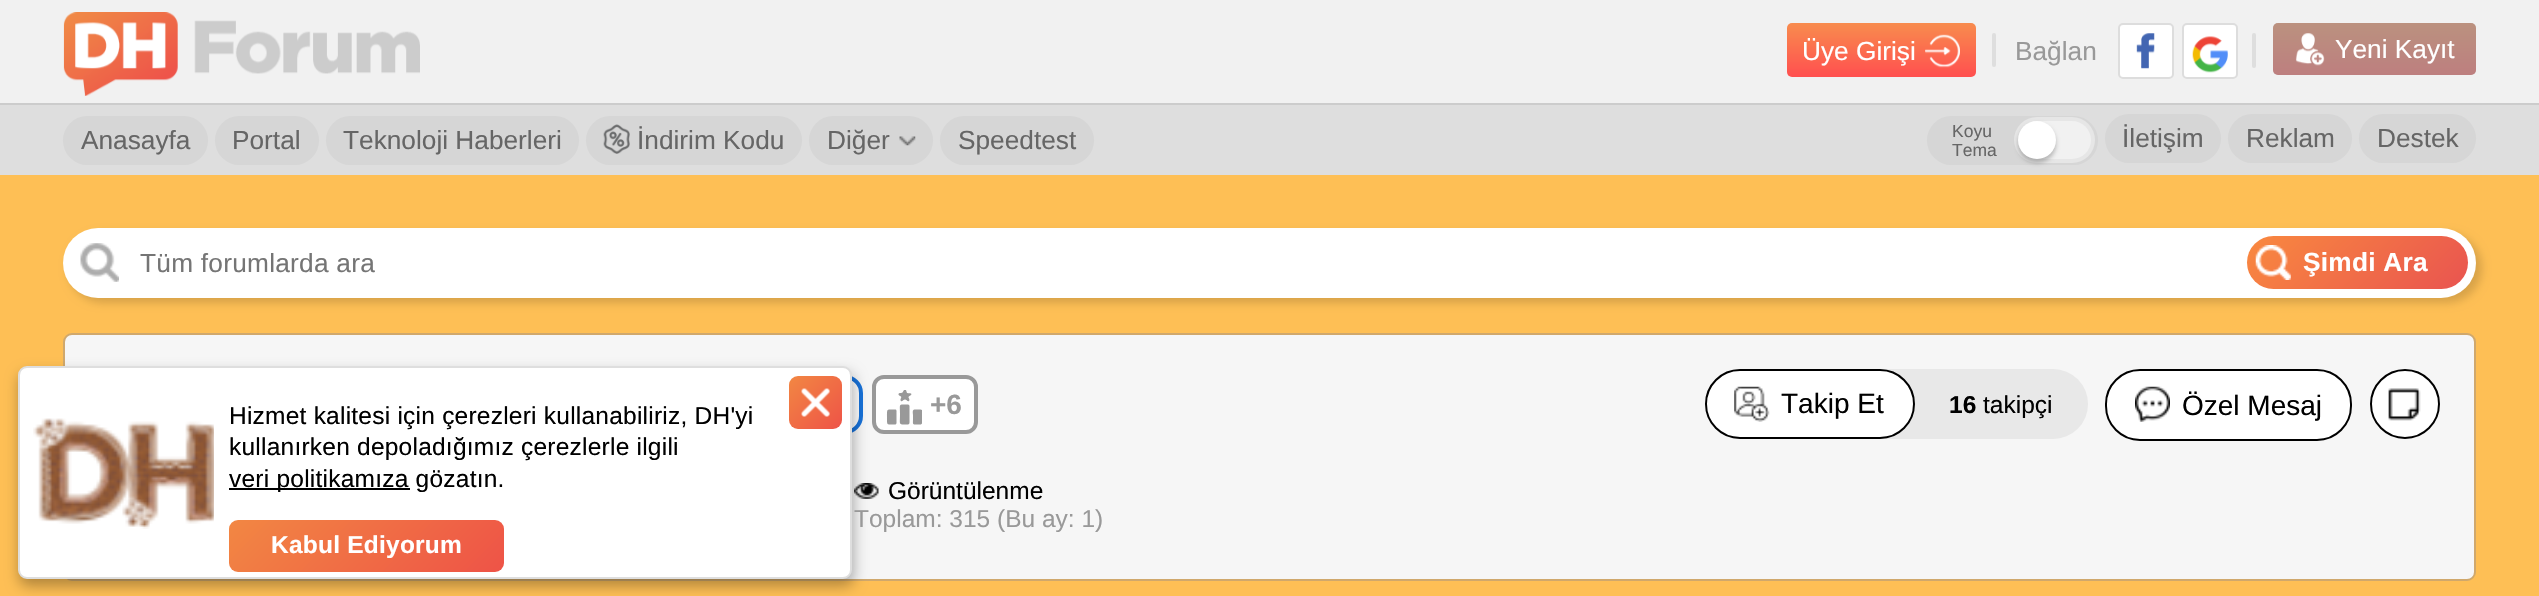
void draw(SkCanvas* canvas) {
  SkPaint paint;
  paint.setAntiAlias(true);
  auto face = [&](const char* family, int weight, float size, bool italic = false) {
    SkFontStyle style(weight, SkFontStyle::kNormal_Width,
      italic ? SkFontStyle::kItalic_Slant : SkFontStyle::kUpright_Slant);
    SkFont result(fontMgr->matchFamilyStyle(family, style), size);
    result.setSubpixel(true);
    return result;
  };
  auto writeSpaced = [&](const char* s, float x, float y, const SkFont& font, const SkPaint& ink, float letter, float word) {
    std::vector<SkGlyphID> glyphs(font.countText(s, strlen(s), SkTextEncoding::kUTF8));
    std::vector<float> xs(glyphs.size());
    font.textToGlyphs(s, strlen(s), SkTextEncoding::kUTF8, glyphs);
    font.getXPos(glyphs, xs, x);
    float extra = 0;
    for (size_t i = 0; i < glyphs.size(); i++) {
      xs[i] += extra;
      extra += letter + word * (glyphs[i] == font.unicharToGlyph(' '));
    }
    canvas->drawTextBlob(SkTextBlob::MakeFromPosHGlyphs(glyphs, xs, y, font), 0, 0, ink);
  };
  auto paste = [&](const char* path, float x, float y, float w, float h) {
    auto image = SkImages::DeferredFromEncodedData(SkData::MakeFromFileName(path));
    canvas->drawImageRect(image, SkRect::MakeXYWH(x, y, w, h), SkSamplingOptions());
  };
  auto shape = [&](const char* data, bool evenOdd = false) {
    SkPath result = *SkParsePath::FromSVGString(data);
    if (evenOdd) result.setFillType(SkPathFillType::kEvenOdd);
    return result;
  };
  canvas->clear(0xfffebf55);
  paint.setColor(0xfff1f1f1);
  canvas->drawRect(SkRect::MakeXYWH(0, 0, 2539, 103), paint);
  paint.setColor(0xffcccccc);
  canvas->drawRect(SkRect::MakeXYWH(0, 103, 2539, 2), paint);
  paste("img/1.png", 63, 12, 115, 84);
  paste("img/2.png", 194, 20, 226, 54);
  {
    const SkColor colors[] = {0xffff4f4f, 0xfff88c4e};
    const float stops[] = {0, 1};
    const SkPoint ends[] = {{1881, 77}, {1881, 23}};
    paint.setShader(SkGradientShader::MakeLinear(ends, colors, stops, 2, SkTileMode::kClamp));
    paint.setAlpha(255);
  }
  canvas->drawRoundRect(SkRect::MakeXYWH(1787, 23, 189, 54), 5, 5, paint);
  paste("img/3.png", 1925, 34, 35, 34);
  paint.setShader(nullptr);
  paint.setColor(0xffdedede);
  canvas->drawRoundRect(SkRect::MakeXYWH(1992, 33, 4, 34), 2, 2, paint);
  paint.setColor(0xffffffff);
  canvas->drawRoundRect(SkRect::MakeXYWH(2119, 24, 54, 54), 4, 4, paint);
  paint.setStroke(true);
  paint.setStrokeWidth(2);
  paint.setColor(0xffdddddd);
  canvas->drawRoundRect(SkRect::MakeXYWH(2119, 24, 54, 54), 4, 4, paint);
  paste("img/4.png", 2136, 33, 19, 36);
  paint.setStroke(false);
  paint.setColor(0xffffffff);
  canvas->drawRoundRect(SkRect::MakeXYWH(2183, 24, 54, 54), 4, 4, paint);
  paint.setStroke(true);
  paint.setColor(0xffdddddd);
  canvas->drawRoundRect(SkRect::MakeXYWH(2183, 24, 54, 54), 4, 4, paint);
  paste("img/5.png", 2192, 36, 36, 37);
  paint.setStroke(false);
  paint.setColor(0xffdedede);
  canvas->drawRoundRect(SkRect::MakeXYWH(2252, 33, 4, 35), 2, 2, paint);
  paint.setColor(0xffa19393);
  canvas->drawRoundRect(SkRect::MakeXYWH(2273, 23, 203, 52), 5, 5, paint);
  {
    const SkColor colors[] = {0x4dff4f4f, 0x4df88c4e};
    const float stops[] = {0, 1};
    const SkPoint ends[] = {{2375, 75}, {2375, 23}};
    paint.setShader(SkGradientShader::MakeLinear(ends, colors, stops, 2, SkTileMode::kClamp));
    paint.setAlpha(255);
  }
  canvas->drawRoundRect(SkRect::MakeXYWH(2273, 23, 203, 52), 5, 5, paint);
  paste("img/6.png", 2295, 33, 30, 33);
  paint.setShader(nullptr);
  paint.setColor(0xffdedede);
  canvas->drawRect(SkRect::MakeXYWH(0, 105, 2539, 70), paint);
  paint.setColor(0xffd6d6d6);
  canvas->drawRoundRect(SkRect::MakeXYWH(63, 116, 145, 49), 24.5f, 24.5f, paint);
  canvas->drawRoundRect(SkRect::MakeXYWH(215, 116, 104, 49), 24.5f, 24.5f, paint);
  canvas->drawRoundRect(SkRect::MakeXYWH(326, 116, 253, 49), 24.5f, 24.5f, paint);
  canvas->drawRoundRect(SkRect::MakeXYWH(586, 116, 216, 49), 24.5f, 24.5f, paint);
  paste("img/7.png", 603, 124, 27, 30);
  canvas->drawRoundRect(SkRect::MakeXYWH(809, 116, 124, 49), 24.5f, 24.5f, paint);
  paste("img/8.png", 899, 136, 17, 10);
  canvas->drawRoundRect(SkRect::MakeXYWH(940, 116, 154, 49), 24.5f, 24.5f, paint);
  canvas->drawRoundRect(SkRect::MakeXYWH(1927, 116, 171, 49), 24.5f, 24.5f, paint);
  paint.setColor(0xffe6e6e6);
  canvas->drawRoundRect(SkRect::MakeXYWH(2014, 117, 81, 46), 23, 23, paint);
  paint.setColor(0xfff1f1f1);
  canvas->drawRoundRect(SkRect::MakeXYWH(2018, 121, 73, 38), 19, 19, paint);
  paint.setColor(0x3d000000);
  paint.setMaskFilter(SkMaskFilter::MakeBlur(kNormal_SkBlurStyle, 2));
  canvas->drawRoundRect(SkRect::MakeXYWH(2018, 124, 38, 39), 19, 19, paint);
  paint.setMaskFilter(nullptr);
  paint.setColor(0xffffffff);
  canvas->drawCircle(2037, 140, 19, paint);
  paint.setColor(0xffd6d6d6);
  canvas->drawRoundRect(SkRect::MakeXYWH(2105, 114, 116, 49), 24.5f, 24.5f, paint);
  canvas->drawRoundRect(SkRect::MakeXYWH(2228, 114, 124, 49), 24.5f, 24.5f, paint);
  canvas->drawRoundRect(SkRect::MakeXYWH(2359, 114, 117, 49), 24.5f, 24.5f, paint);
  paint.setColor(0x26000000);
  paint.setMaskFilter(SkMaskFilter::MakeBlur(kNormal_SkBlurStyle, 4.5f));
  canvas->drawRoundRect(SkRect::MakeXYWH(68, 233, 2414, 70), 35, 35, paint);
  paint.setMaskFilter(nullptr);
  paint.setColor(0xffffffff);
  canvas->drawRoundRect(SkRect::MakeXYWH(63, 228, 2413, 70), 35, 35, paint);
  paste("img/9.png", 80, 243, 39, 39);
  {
    const SkColor colors[] = {0xfff9893f, 0xffe95450};
    const float stops[] = {0, 1};
    const SkPoint ends[] = {{2289, 194}, {2426, 331}};
    paint.setShader(SkGradientShader::MakeLinear(ends, colors, stops, 2, SkTileMode::kClamp));
    paint.setAlpha(255);
  }
  canvas->drawRoundRect(SkRect::MakeXYWH(2247, 236, 221, 53), 26.5f, 26.5f, paint);
  paste("img/10.png", 2255, 245, 36, 35);
  paint.setShader(nullptr);
  paint.setColor(0xfff6f6f6);
  canvas->drawRoundRect(SkRect::MakeXYWH(64, 334, 2411, 246), 8, 8, paint);
  paint.setStroke(true);
  paint.setColor(0xffd0a86c);
  canvas->drawRoundRect(SkRect::MakeXYWH(64, 334, 2411, 246), 8, 8, paint);
  paint.setStroke(false);
  paint.setColor(0xffffffff);
  canvas->drawRoundRect(SkRect::MakeXYWH(805, 377, 56, 55), 16, 16, paint);
  paint.setStroke(true);
  paint.setStrokeWidth(4);
  paint.setColor(0xff1872d9);
  canvas->drawRoundRect(SkRect::MakeXYWH(805, 377, 56, 55), 16, 16, paint);
  paint.setStroke(false);
  paint.setColor(0xffffffff);
  canvas->drawRoundRect(SkRect::MakeXYWH(874, 377, 102, 55), 10, 10, paint);
  paint.setStroke(true);
  paint.setColor(0xff999999);
  canvas->drawRoundRect(SkRect::MakeXYWH(874, 377, 102, 55), 10, 10, paint);
  paint.setStroke(false);
  canvas->drawPath(shape("M920.5 409.5L922 410V423.5C921 425 919 424.5 917.5 424.5C912 424.5 913 424.5 913 419V415C913 413.5 912 409.5 914.5 409.5ZM906 390L907 393H907.5C908.5 393.5 911 392.5 911.5 394L911 395C910.5 395.5 908 396.5 908.5 397.5C909 398.5 910 400 909 401C907.5 402 906.5 399.5 905 399.5C903.5 399.5 902 402 901 401C899.5 399.5 902 397.5 901 396.5C900 396 898 395 898.5 394C899 392 901.5 393.5 902.5 392.5L904 390ZM908 404.5C898 404.5 900 403 900 414.5C900 425.5 898 424.5 908 424.5C910 424.5 909.5 421.5 909.5 420V408.5C909.5 407.5 910 404.5 908 404.5ZM895 409.5C886.5 409.5 887 408 887 417C887 426 886.5 424.5 895 424.5C897 424.5 896.5 422 896.5 421V413C896.5 411.5 897 409.5 895 409.5Z", true), paint);
  paint.setColor(0xffe8e8e8);
  canvas->drawRoundRect(SkRect::MakeXYWH(1705, 369, 383, 70), 35, 35, paint);
  paint.setColor(0xffffffff);
  canvas->drawRoundRect(SkRect::MakeXYWH(1706, 370, 208, 68), 34, 34, paint);
  paint.setStroke(true);
  paint.setStrokeWidth(2);
  paint.setColor(0xff000000);
  canvas->drawRoundRect(SkRect::MakeXYWH(1706, 370, 208, 68), 34, 34, paint);
  paste("img/11.png", 1734, 386, 36, 36);
  paint.setStroke(false);
  paint.setColor(0xffffffff);
  canvas->drawRoundRect(SkRect::MakeXYWH(2106, 370, 245, 70), 34, 34, paint);
  paint.setStroke(true);
  paint.setColor(0xff000000);
  canvas->drawRoundRect(SkRect::MakeXYWH(2106, 370, 245, 70), 34, 34, paint);
  paste("img/12.png", 2135, 386, 35, 36);
  paint.setStroke(false);
  paint.setColor(0xffffffff);
  canvas->drawCircle(2405, 404, 34, paint);
  paint.setStroke(true);
  paint.setColor(0xff000000);
  canvas->drawCircle(2405, 404, 34, paint);
  paste("img/13.png", 2388, 388, 33, 33);
  paste("img/14.png", 854, 483, 25, 16);
  paint.setStroke(false);
  paint.setColor(0x4d000000);
  paint.setMaskFilter(SkMaskFilter::MakeBlur(kNormal_SkBlurStyle, 7));
  canvas->drawRoundRect(SkRect::MakeXYWH(19, 373, 835, 213), 9, 9, paint);
  paint.setMaskFilter(nullptr);
  paint.setColor(0xffffffff);
  canvas->drawRoundRect(SkRect::MakeXYWH(19, 367, 832, 211), 8, 8, paint);
  paint.setStroke(true);
  paint.setColor(0xffdedede);
  canvas->drawRoundRect(SkRect::MakeXYWH(19, 367, 832, 211), 8, 8, paint);
  paste("img/15.png", 33, 418, 181, 111);
  paint.setStroke(false);
  paint.setColor(0xff000000);
  canvas->drawRect(SkRect::MakeXYWH(229, 488, 181, 2), paint);
  {
    const SkColor colors[] = {0xfff28743, 0xffee5347};
    const float stops[] = {0, 1};
    const SkPoint ends[] = {{285, 464}, {448, 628}};
    paint.setShader(SkGradientShader::MakeLinear(ends, colors, stops, 2, SkTileMode::kClamp));
    paint.setAlpha(255);
  }
  canvas->drawRoundRect(SkRect::MakeXYWH(229, 520, 275, 52), 9, 9, paint);
  {
    const SkColor colors[] = {0xfff28743, 0xffee5347};
    const float stops[] = {0, 1};
    const SkPoint ends[] = {{789, 376}, {842, 429}};
    paint.setShader(SkGradientShader::MakeLinear(ends, colors, stops, 2, SkTileMode::kClamp));
    paint.setAlpha(255);
  }
  canvas->drawRoundRect(SkRect::MakeXYWH(789, 376, 53, 53), 9, 9, paint);
  paste("img/16.png", 801, 388, 29, 29);
  auto f0 = face("Liberation Sans", 400, 26.25f);
  paint.setShader(nullptr);
  paint.setColor(0xffffffff);
  canvas->drawString("Üye Girişi", 1802, 60, f0, paint);
  paint.setColor(0xff999999);
  canvas->drawString("Bağlan", 2015, 60, f0, paint);
  paint.setColor(0xffffffff);
  canvas->drawString("Yeni Kayıt", 2335, 58, f0, paint);
  paint.setColor(0xff666666);
  {
    const struct { const char* s; float x, y; } items[] = {
      {"Anasayfa", 81, 149},
      {"Portal", 232, 149},
      {"Teknoloji Haberleri", 343, 149},
      {"İndirim Kodu", 637, 149},
      {"Diğer", 827, 149},
      {"Speedtest", 958, 149},
    };
    for (auto [s, x, y] : items) {
      canvas->drawString(s, x, y, f0, paint);
    }
  }
  auto f1 = face("Liberation Sans", 400, 17.5f);
  canvas->drawString("Koyu", 1952, 137, f1, paint);
  canvas->drawString("Tema", 1952, 156, f1, paint);
  {
    const struct { const char* s; float x, y; } items[] = {
      {"İletişim", 2122, 147},
      {"Reklam", 2246, 147},
      {"Destek", 2377, 147},
    };
    for (auto [s, x, y] : items) {
      canvas->drawString(s, x, y, f0, paint);
    }
  }
  paint.setColor(0xff757575);
  writeSpaced("Tüm forumlarda ara", 140, 272, f0, paint, 0.25f, 0);
  auto f2 = face("Liberation Sans", 700, 26.25f);
  paint.setColor(0xffffffff);
  writeSpaced("Şimdi Ara", 2303, 271, f2, paint, 0.25f, 0);
  auto f3 = face("Liberation Sans", 700, 28);
  paint.setColor(0xff999999);
  canvas->drawString("+6", 930, 414, f3, paint);
  auto f4 = face("Liberation Sans", 400, 28);
  paint.setColor(0xff000000);
  canvas->drawString("Takip Et", 1781, 413, f4, paint);
  auto f5 = face("Liberation Sans", 700, 24.5f);
  canvas->drawString("16", 1949, 413, f5, paint);
  auto f6 = face("Liberation Sans", 400, 24.5f);
  canvas->drawString("takipçi", 1983, 413, f6, paint);
  canvas->drawString("Özel Mesaj", 2182, 415, f4, paint);
  canvas->drawString("Görüntülenme", 888, 499, f6, paint);
  paint.setColor(0xff999999);
  canvas->drawString("Toplam: 315 (Bu ay: 1)", 854, 527, f6, paint);
  paint.setColor(0xff000000);
  {
    const struct { const char* s; float x, y; } items[] = {
      {"Hizmet kalitesi için çerezleri kullanabiliriz, DH'yi", 229, 424},
      {"kullanırken depoladığımız çerezlerle ilgili", 229, 455},
      {"veri politikamıza gözatın.", 229, 487},
    };
    for (auto [s, x, y] : items) {
      writeSpaced(s, x, y, f6, paint, 0.23f, 0);
    }
  }
  paint.setColor(0xffffffff);
  writeSpaced("Kabul Ediyorum", 271, 553, f5, paint, 0.23f, 0);
}
